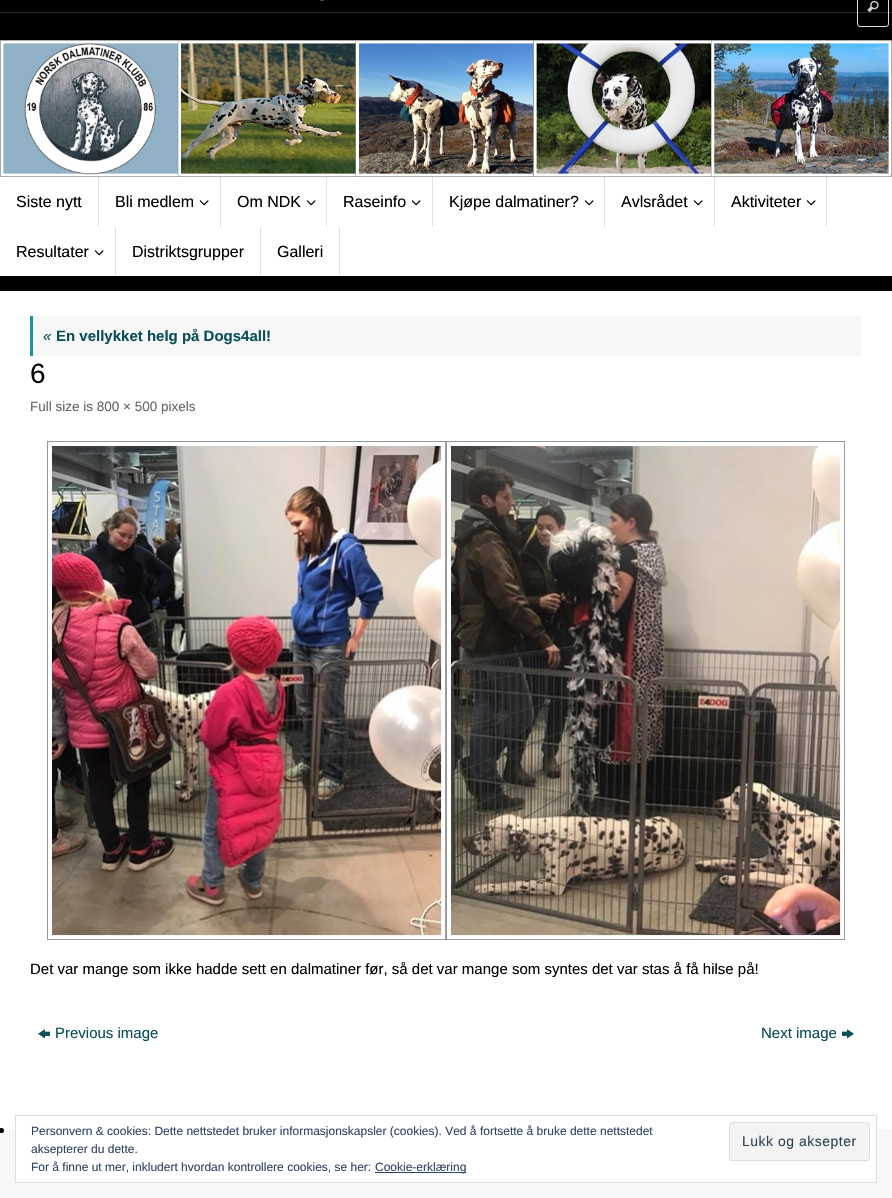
void draw(SkCanvas* canvas) {
  SkPaint paint;
  paint.setAntiAlias(true);
  auto face = [&](const char* family, int weight, float size, bool italic = false) {
    SkFontStyle style(weight, SkFontStyle::kNormal_Width,
      italic ? SkFontStyle::kItalic_Slant : SkFontStyle::kUpright_Slant);
    SkFont result(fontMgr->matchFamilyStyle(family, style), size);
    result.setSubpixel(true);
    return result;
  };
  auto writeSpaced = [&](const char* s, float x, float y, const SkFont& font, const SkPaint& ink, float letter, float word) {
    std::vector<SkGlyphID> glyphs(font.countText(s, strlen(s), SkTextEncoding::kUTF8));
    std::vector<float> xs(glyphs.size());
    font.textToGlyphs(s, strlen(s), SkTextEncoding::kUTF8, glyphs);
    font.getXPos(glyphs, xs, x);
    float extra = 0;
    for (size_t i = 0; i < glyphs.size(); i++) {
      xs[i] += extra;
      extra += letter + word * (glyphs[i] == font.unicharToGlyph(' '));
    }
    canvas->drawTextBlob(SkTextBlob::MakeFromPosHGlyphs(glyphs, xs, y, font), 0, 0, ink);
  };
  auto paste = [&](const char* path, float x, float y, float w, float h) {
    auto image = SkImages::DeferredFromEncodedData(SkData::MakeFromFileName(path));
    canvas->drawImageRect(image, SkRect::MakeXYWH(x, y, w, h), SkSamplingOptions());
  };
  canvas->clear(0xff000000);
  paint.setColor(0xff282828);
  canvas->drawRect(SkRect::MakeXYWH(0, 12, 892, 1), paint);
  paste("img/1.png", 319, 0, 5, 1);
  paint.setStroke(true);
  paint.setStrokeWidth(1);
  paint.setColor(0xffe0e0e0);
  canvas->drawRoundRect(SkRect::MakeXYWH(857.5f, -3.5f, 31, 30), 2.5f, 2.5f, paint);
  paste("img/2.png", 867, 0, 12, 13);
  paste("img/3.png", 0, 40, 892, 137);
  paint.setStroke(false);
  {
    const struct { float x, y, w, h; SkColor color; } items[] = {
      {0, 177, 892, 99, 0xffffffff},
      {98, 177, 1, 50, 0xffe1e1e1},
      {220, 177, 1, 50, 0xffe1e1e1},
    };
    for (auto [x, y, w, h, color] : items) {
      paint.setColor(color);
      canvas->drawRect(SkRect::MakeXYWH(x, y, w, h), paint);
    }
  }
  paste("img/4.png", 199, 200, 10, 6);
  canvas->drawRect(SkRect::MakeXYWH(326, 177, 1, 50), paint);
  paste("img/4.png", 306, 200, 10, 6);
  canvas->drawRect(SkRect::MakeXYWH(432, 177, 1, 50), paint);
  paste("img/4.png", 411, 200, 10, 6);
  canvas->drawRect(SkRect::MakeXYWH(604, 177, 1, 50), paint);
  paste("img/4.png", 584, 200, 10, 6);
  canvas->drawRect(SkRect::MakeXYWH(714, 177, 1, 50), paint);
  paste("img/4.png", 693, 200, 10, 6);
  canvas->drawRect(SkRect::MakeXYWH(826, 177, 1, 50), paint);
  paste("img/4.png", 806, 200, 10, 6);
  canvas->drawRect(SkRect::MakeXYWH(115, 227, 1, 49), paint);
  paste("img/4.png", 94, 250, 10, 6);
  {
    const struct { float x, y, w, h; SkColor color; } items[] = {
      {260, 227, 1, 49, 0xffe1e1e1},
      {339, 227, 1, 49, 0xffe1e1e1},
      {0, 291, 892, 838, 0xffffffff},
      {33, 316, 829, 40, 0xfff7f7f7},
      {30, 316, 3, 40, 0xff1693a5},
    };
    for (auto [x, y, w, h, color] : items) {
      paint.setColor(color);
      canvas->drawRect(SkRect::MakeXYWH(x, y, w, h), paint);
    }
  }
  paste("img/5.png", 47, 441, 798, 499);
  paste("img/6.png", 38, 1029, 12, 10);
  paste("img/7.png", 842, 1029, 12, 10);
  paint.setColor(0xfff7f7f7);
  canvas->drawRect(SkRect::MakeXYWH(0, 1129, 892, 69), paint);
  paint.setColor(0xff000000);
  canvas->drawCircle(1.5f, 1130.5f, 2.5f, paint);
  paint.setColor(0xffffffff);
  canvas->drawRect(SkRect::MakeXYWH(16, 1129, 860, 53), paint);
  paint.setStroke(true);
  paint.setColor(0xffdedede);
  canvas->drawRect(SkRect::MakeXYWH(15.5f, 1115.5f, 861, 67), paint);
  paint.setStroke(false);
  paint.setColor(0xfff3f3f3);
  canvas->drawRoundRect(SkRect::MakeXYWH(729.5f, 1122.5f, 140, 38), 2.5f, 2.5f, paint);
  paint.setStroke(true);
  paint.setColor(0xffdedede);
  canvas->drawRoundRect(SkRect::MakeXYWH(729.5f, 1122.5f, 140, 38), 2.5f, 2.5f, paint);
  paint.setStroke(false);
  paint.setColor(0xff2e4467);
  canvas->drawRect(SkRect::MakeXYWH(375, 1172, 91, 1), paint);
  auto f0 = face("Liberation Sans", 400, 16);
  paint.setColor(0xff000000);
  {
    const struct { const char* s; float x, y; } items[] = {
      {"Siste nytt", 16, 207},
      {"Bli medlem", 115, 207},
      {"Om NDK", 237, 207},
      {"Raseinfo", 343, 207},
      {"Kjøpe dalmatiner?", 449, 207},
      {"Avlsrådet", 621, 207},
      {"Aktiviteter", 731, 207},
      {"Resultater", 16, 257},
      {"Distriktsgrupper", 132, 257},
      {"Galleri", 277, 257},
    };
    for (auto [s, x, y] : items) {
      canvas->drawString(s, x, y, f0, paint);
    }
  }
  auto f1 = face("Liberation Sans", 400, 15, true);
  paint.setColor(0xff094e58);
  canvas->drawString("«", 43, 341, f1, paint);
  auto f2 = face("Liberation Sans", 700, 15);
  canvas->drawString("En vellykket helg på Dogs4all!", 56, 341, f2, paint);
  auto f3 = face("Liberation Sans", 400, 28);
  paint.setColor(0xff000000);
  canvas->drawString("6", 30, 383, f3, paint);
  auto f4 = face("Liberation Sans", 400, 13.5f);
  paint.setColor(0xff666666);
  canvas->drawString("Full size is 800 × 500 pixels", 30, 411, f4, paint);
  auto f5 = face("Liberation Sans", 400, 15);
  paint.setColor(0xff000000);
  canvas->drawString("Det var mange som ikke hadde sett en dalmatiner før, så det var mange som syntes det var stas å få hilse på!", 30, 974, f5, paint);
  paint.setColor(0xff094e58);
  canvas->drawString("Previous image", 55, 1038, f5, paint);
  canvas->drawString("Next image", 761, 1038, f5, paint);
  auto f6 = face("Liberation Sans", 400, 12);
  paint.setColor(0xff2e4467);
  canvas->drawString("Personvern & cookies: Dette nettstedet bruker informasjonskapsler (cookies). Ved å fortsette å bruke dette nettstedet", 31, 1135, f6, paint);
  canvas->drawString("aksepterer du dette.", 31, 1153, f6, paint);
  auto f7 = face("Liberation Sans", 400, 14);
  paint.setColor(0xff2e4453);
  writeSpaced("Lukk og aksepter", 742, 1146, f7, paint, 0.5f, 0);
  paint.setColor(0xff2e4467);
  canvas->drawString("For å finne ut mer, inkludert hvordan kontrollere cookies, se her:", 31, 1171, f6, paint);
  canvas->drawString("Cookie-erklæring", 375, 1171, f6, paint);
}
